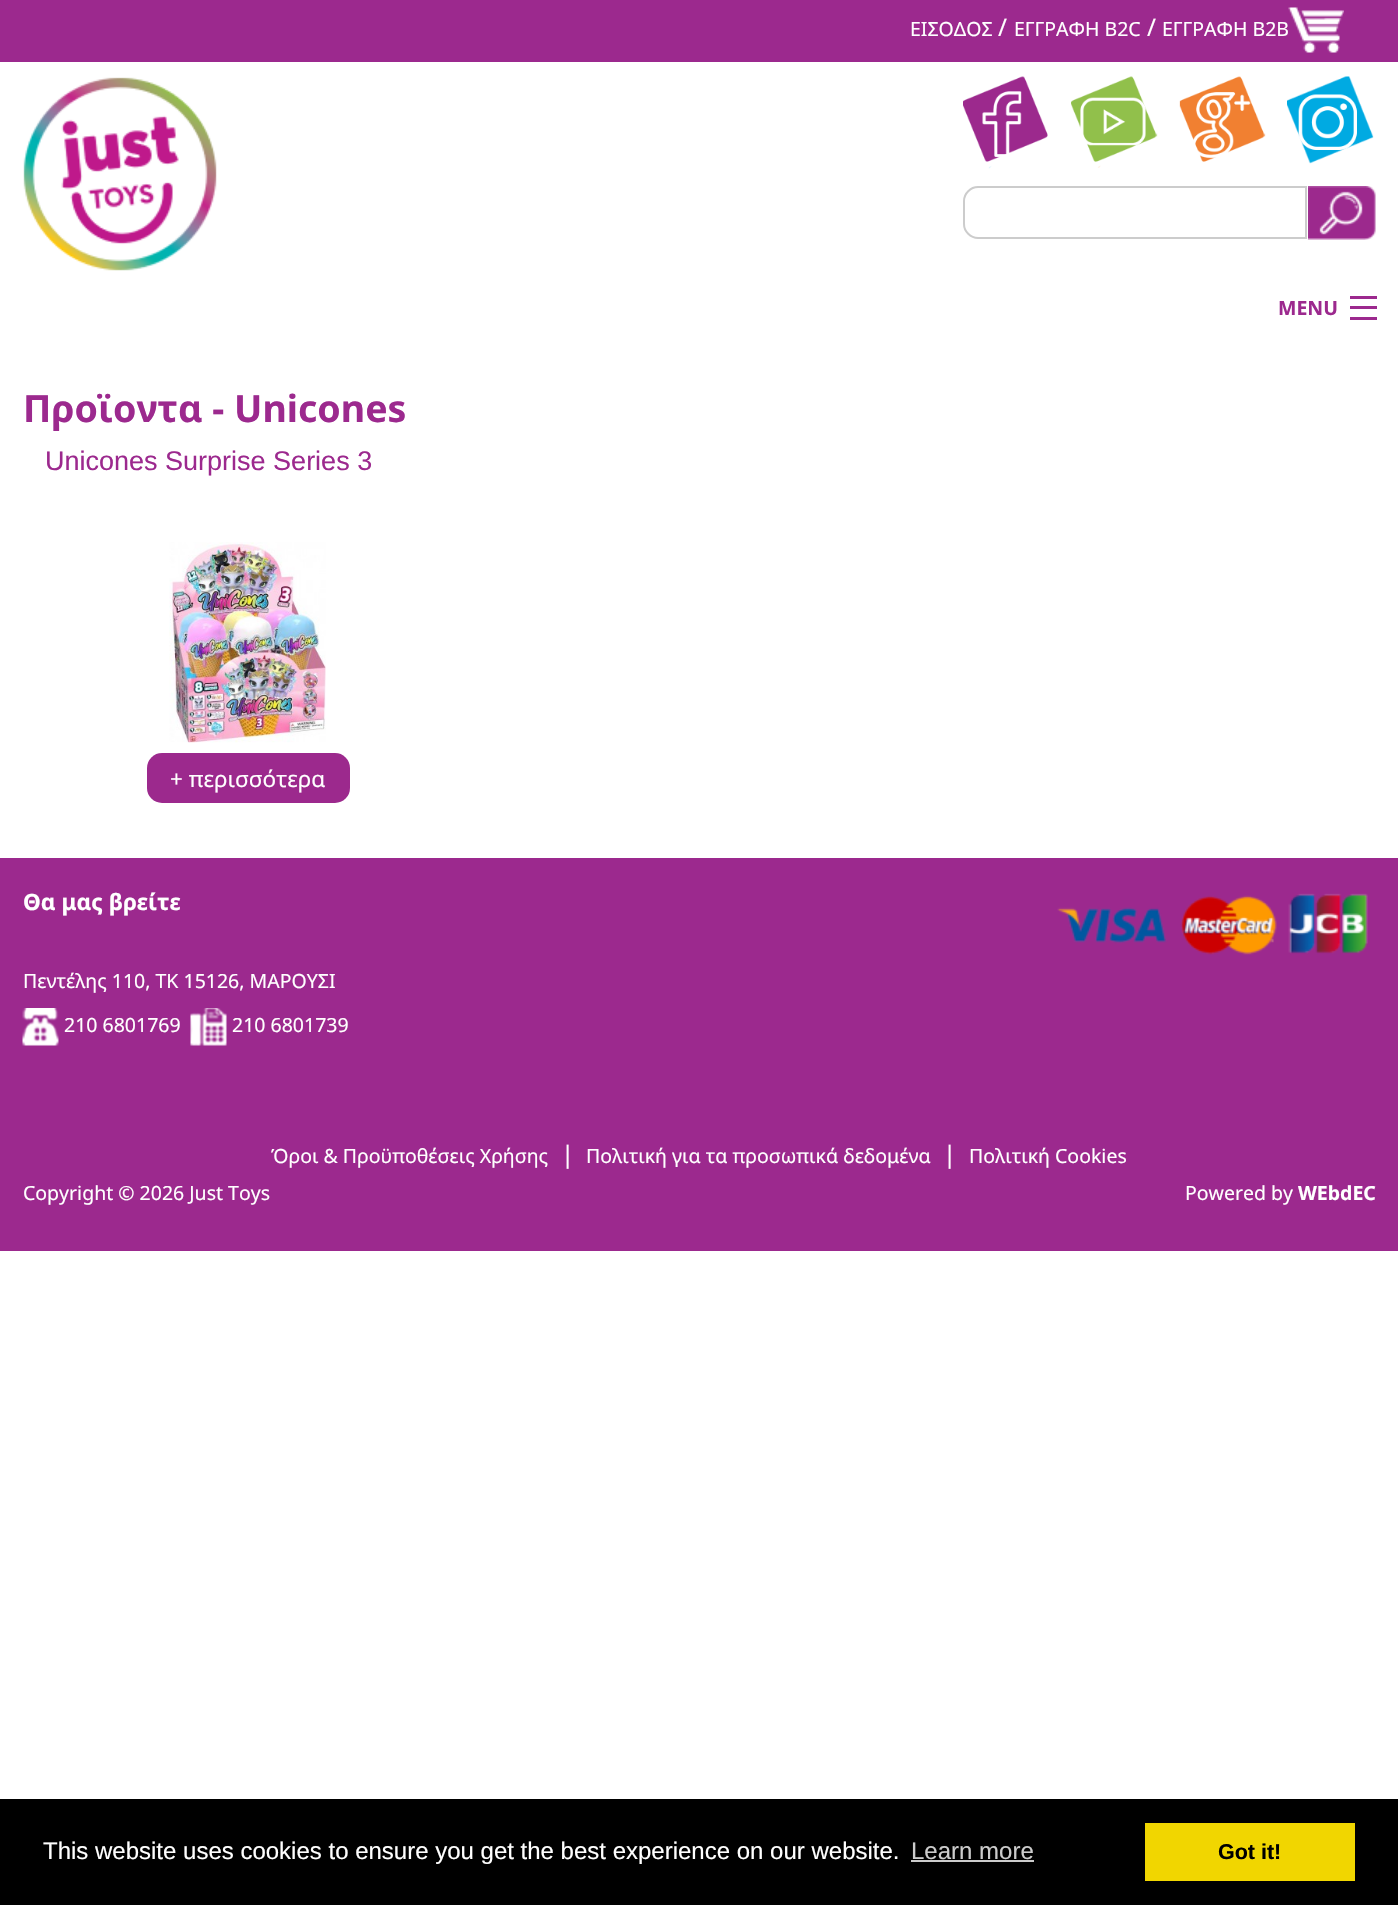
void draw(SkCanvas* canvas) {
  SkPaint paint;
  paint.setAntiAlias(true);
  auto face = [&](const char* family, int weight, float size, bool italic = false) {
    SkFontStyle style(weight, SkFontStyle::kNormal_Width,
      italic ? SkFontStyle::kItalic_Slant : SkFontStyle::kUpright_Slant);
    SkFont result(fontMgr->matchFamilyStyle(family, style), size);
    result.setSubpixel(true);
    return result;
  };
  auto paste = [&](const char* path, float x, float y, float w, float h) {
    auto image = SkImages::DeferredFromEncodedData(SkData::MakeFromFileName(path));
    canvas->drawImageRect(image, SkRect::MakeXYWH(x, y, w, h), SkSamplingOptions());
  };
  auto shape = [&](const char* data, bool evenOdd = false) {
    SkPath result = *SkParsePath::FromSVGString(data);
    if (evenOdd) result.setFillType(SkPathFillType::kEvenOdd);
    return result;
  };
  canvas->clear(0xffffffff);
  paint.setColor(0xff9c298e);
  canvas->drawRect(SkRect::MakeXYWH(0, 0, 1398, 62), paint);
  paste("img/1.png", 1288, 7, 56, 46);
  paste("img/2.png", 23, 77, 194, 194);
  paste("img/3.png", 963, 76, 85, 93);
  paste("img/4.png", 1071, 76, 87, 92);
  paste("img/5.png", 1179, 76, 87, 86);
  paste("img/6.png", 1287, 76, 87, 88);
  paint.setStroke(true);
  paint.setStrokeWidth(2);
  paint.setColor(0xffcccccc);
  canvas->drawPath(shape("M978 187H1306V238H978C970.5 238 964 231.5 964 224V201C964 193.5 970.5 187 978 187Z"), paint);
  paste("img/7.png", 1308, 186, 68, 54);
  paint.setStroke(false);
  {
    const struct { float x, y, w, h; SkColor color; } items[] = {
      {1350, 317, 27, 3, 0xff9c298e},
      {1350, 306, 27, 3, 0xff9c298e},
      {1350, 296, 27, 3, 0xff9c298e},
    };
    for (auto [x, y, w, h, color] : items) {
      paint.setColor(color);
      canvas->drawRect(SkRect::MakeXYWH(x, y, w, h), paint);
    }
  }
  paste("img/8.png", 169, 542, 157, 201);
  paint.setColor(0xff9c298d);
  canvas->drawRoundRect(SkRect::MakeXYWH(147, 753, 203, 50), 15, 15, paint);
  paint.setColor(0xff9c298e);
  canvas->drawRect(SkRect::MakeXYWH(0, 858, 1398, 393), paint);
  paste("img/9.png", 22, 1008, 37, 38);
  paste("img/10.png", 190, 1008, 37, 38);
  paste("img/11.png", 1057, 893, 311, 62);
  {
    const struct { float x, y, w, h; SkColor color; } items[] = {
      {0, 1799, 1398, 106, 0xff000000},
      {911, 1860, 123, 2, 0xffcccccc},
      {1145, 1823, 210, 58, 0xfff1d600},
    };
    for (auto [x, y, w, h, color] : items) {
      paint.setColor(color);
      canvas->drawRect(SkRect::MakeXYWH(x, y, w, h), paint);
    }
  }
  auto f0 = face("Noto Sans", 400, 19.5f);
  paint.setColor(0xffffffff);
  canvas->drawString("ΕΙΣΟΔΟΣ", 910, 36, f0, paint);
  auto f1 = face("Noto Sans", 400, 24);
  canvas->drawString("/", 998, 36, f1, paint);
  canvas->drawString("ΕΓΓΡΑΦΗ Β2C", 1014, 36, f0, paint);
  canvas->drawString("/", 1147, 36, f1, paint);
  canvas->drawString("ΕΓΓΡΑΦΗ Β2Β", 1162, 36, f0, paint);
  auto f2 = face("Noto Sans", 700, 19.5f);
  paint.setColor(0xff9c298e);
  canvas->drawString("MENU", 1278, 315, f2, paint);
  auto f3 = face("Noto Sans", 700, 37.5f);
  canvas->drawString("Προϊοντα - Unicones", 23, 422, f3, paint);
  auto f4 = face("Liberation Sans", 400, 27);
  canvas->drawString("Unicones Surprise Series 3", 45, 470, f4, paint);
  auto f5 = face("Noto Sans", 400, 22.5f);
  paint.setColor(0xffffffff);
  canvas->drawString("+ περισσότερα", 170, 787, f5, paint);
  auto f6 = face("Noto Sans", 700, 22.5f);
  canvas->drawString("Θα μας βρείτε", 23, 910, f6, paint);
  {
    const struct { const char* s; float x, y; } items[] = {
      {"Πεντέλης 110, ΤΚ 15126, ΜΑΡΟΥΣΙ", 23, 988},
      {"210 6801769", 64, 1032},
      {"210 6801739", 232, 1032},
      {"Όροι & Προϋποθέσεις Χρήσης", 271, 1163},
    };
    for (auto [s, x, y] : items) {
      canvas->drawString(s, x, y, f0, paint);
    }
  }
  canvas->drawString("|", 561, 1163, f1, paint);
  canvas->drawString("Πολιτική για τα προσωπικά δεδομένα", 586, 1163, f0, paint);
  canvas->drawString("|", 943, 1163, f1, paint);
  {
    const struct { const char* s; float x, y; } items[] = {
      {"Πολιτική Cookies", 969, 1163},
      {"Copyright © 2026 Just Toys", 23, 1200},
      {"Powered by", 1185, 1200},
    };
    for (auto [s, x, y] : items) {
      canvas->drawString(s, x, y, f0, paint);
    }
  }
  canvas->drawString("WEbdEC", 1298, 1200, f2, paint);
  auto f7 = face("Liberation Sans", 400, 24);
  canvas->drawString("This website uses cookies to ensure you get the best experience on our website.", 43, 1859, f7, paint);
  paint.setColor(0xffcccccc);
  canvas->drawString("Learn more", 911, 1859, f7, paint);
  auto f8 = face("Liberation Sans", 700, 21.5f);
  paint.setColor(0xff000000);
  canvas->drawString("Got it!", 1218, 1859, f8, paint);
}
